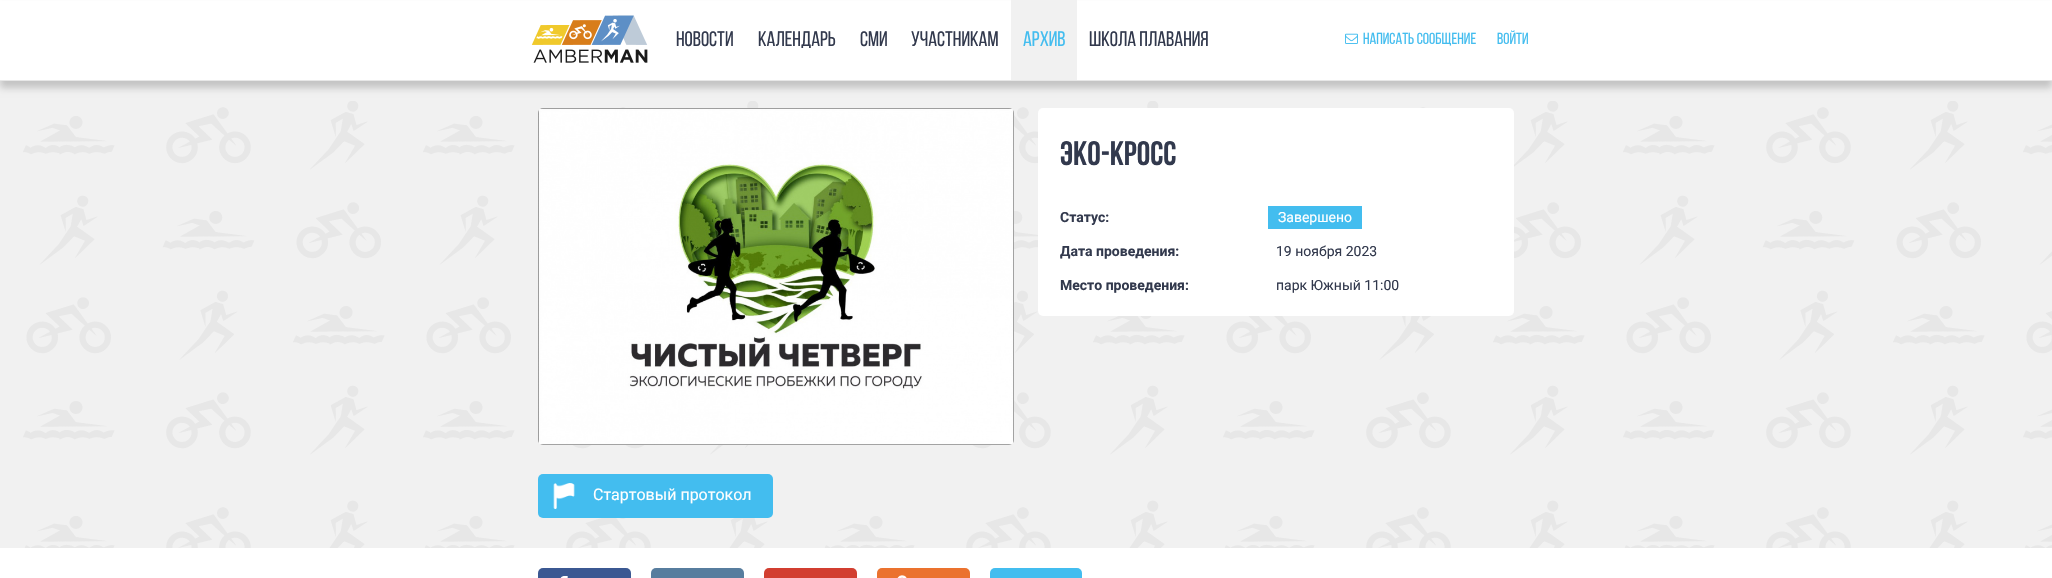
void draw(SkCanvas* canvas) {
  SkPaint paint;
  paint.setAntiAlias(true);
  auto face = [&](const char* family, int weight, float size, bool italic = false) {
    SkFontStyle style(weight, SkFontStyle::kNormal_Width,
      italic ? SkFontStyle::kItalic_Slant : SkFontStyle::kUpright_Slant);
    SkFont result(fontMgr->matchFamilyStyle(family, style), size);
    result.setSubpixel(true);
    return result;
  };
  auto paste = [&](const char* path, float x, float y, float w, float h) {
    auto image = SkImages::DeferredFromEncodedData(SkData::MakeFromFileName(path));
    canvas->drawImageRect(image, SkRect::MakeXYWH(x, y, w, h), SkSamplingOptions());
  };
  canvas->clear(0xffffffff);
  paint.setColor(0xfff1f1f1);
  canvas->drawRect(SkRect::MakeXYWH(0, 81, 2052, 467), paint);
  paint.setColor(0x30000000);
  paint.setMaskFilter(SkMaskFilter::MakeBlur(kNormal_SkBlurStyle, 3.5f));
  canvas->drawRect(SkRect::MakeXYWH(0, 7, 2052, 81), paint);
  paint.setMaskFilter(nullptr);
  paint.setColor(0xffffffff);
  canvas->drawRect(SkRect::MakeXYWH(0, 1, 2052, 79), paint);
  paint.setColor(0xffe7e7e7);
  canvas->drawRect(SkRect::MakeXYWH(0, 80, 2052, 1), paint);
  paste("img/1.png", 531, 15, 117, 48);
  paint.setColor(0xfff1f1f1);
  canvas->drawRect(SkRect::MakeXYWH(1011, 0, 66, 80), paint);
  paste("img/2.png", 1345, 33, 13, 11);
  paste("img/3.png", 23, 101, 2029, 447);
  paste("img/4.png", 538, 108, 476, 337);
  paint.setColor(0xffffffff);
  canvas->drawRoundRect(SkRect::MakeXYWH(1038, 108, 476, 208), 5, 5, paint);
  paint.setColor(0xff43bdef);
  canvas->drawRect(SkRect::MakeXYWH(1268, 206, 8, 23), paint);
  canvas->drawRect(SkRect::MakeXYWH(1276, 206, 86, 23), paint);
  canvas->drawRoundRect(SkRect::MakeXYWH(538, 474, 235, 44), 5, 5, paint);
  paste("img/5.png", 553, 483, 22, 26);
  paint.setColor(0xff3b5892);
  canvas->drawRoundRect(SkRect::MakeXYWH(538, 568, 93, 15), 5, 5, paint);
  paste("img/6.png", 560, 576, 8, 2);
  paint.setColor(0xff577d9e);
  canvas->drawRoundRect(SkRect::MakeXYWH(651, 568, 93, 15), 5, 5, paint);
  paint.setColor(0xffd23e30);
  canvas->drawRoundRect(SkRect::MakeXYWH(764, 568, 93, 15), 5, 5, paint);
  paint.setColor(0xffeb722e);
  canvas->drawRoundRect(SkRect::MakeXYWH(877, 568, 93, 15), 5, 5, paint);
  paste("img/7.png", 897, 575, 10, 3);
  paint.setColor(0xff43bdef);
  canvas->drawRoundRect(SkRect::MakeXYWH(990, 568, 92, 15), 5, 5, paint);
  auto f0 = face("Bebas Neue", 400, 21);
  paint.setColor(0xff32394d);
  {
    const struct { const char* s; float x, y; } items[] = {
      {"Новости", 676, 46},
      {"Календарь", 758, 46},
      {"СМИ", 860, 46},
      {"Участникам", 911, 46},
    };
    for (auto [s, x, y] : items) {
      canvas->drawString(s, x, y, f0, paint);
    }
  }
  paint.setColor(0xff43bdef);
  canvas->drawString("Архив", 1023, 46, f0, paint);
  paint.setColor(0xff32394d);
  canvas->drawString("Школа плавания", 1089, 46, f0, paint);
  auto f1 = face("Bebas Neue", 400, 16);
  paint.setColor(0xff43bdef);
  canvas->drawString("Написать сообщение", 1363, 44, f1, paint);
  canvas->drawString("Войти", 1497, 44, f1, paint);
  auto f2 = face("Bebas Neue", 700, 34);
  paint.setColor(0xff32394d);
  canvas->drawString("Эко-кросс", 1060, 165, f2, paint);
  auto f3 = face("Roboto", 700, 14);
  canvas->drawString("Статус:", 1060, 222, f3, paint);
  auto f4 = face("Roboto", 400, 14);
  paint.setColor(0xffffffff);
  canvas->drawString("Завершено", 1278, 222, f4, paint);
  paint.setColor(0xff32394d);
  canvas->drawString("Дата проведения:", 1060, 256, f3, paint);
  canvas->drawString("19 ноября 2023", 1276, 256, f4, paint);
  canvas->drawString("Место проведения:", 1060, 290, f3, paint);
  canvas->drawString("парк Южный 11:00", 1276, 290, f4, paint);
  auto f5 = face("Roboto", 400, 16);
  paint.setColor(0xffffffff);
  canvas->drawString("Стартовый протокол", 593, 500, f5, paint);
}
